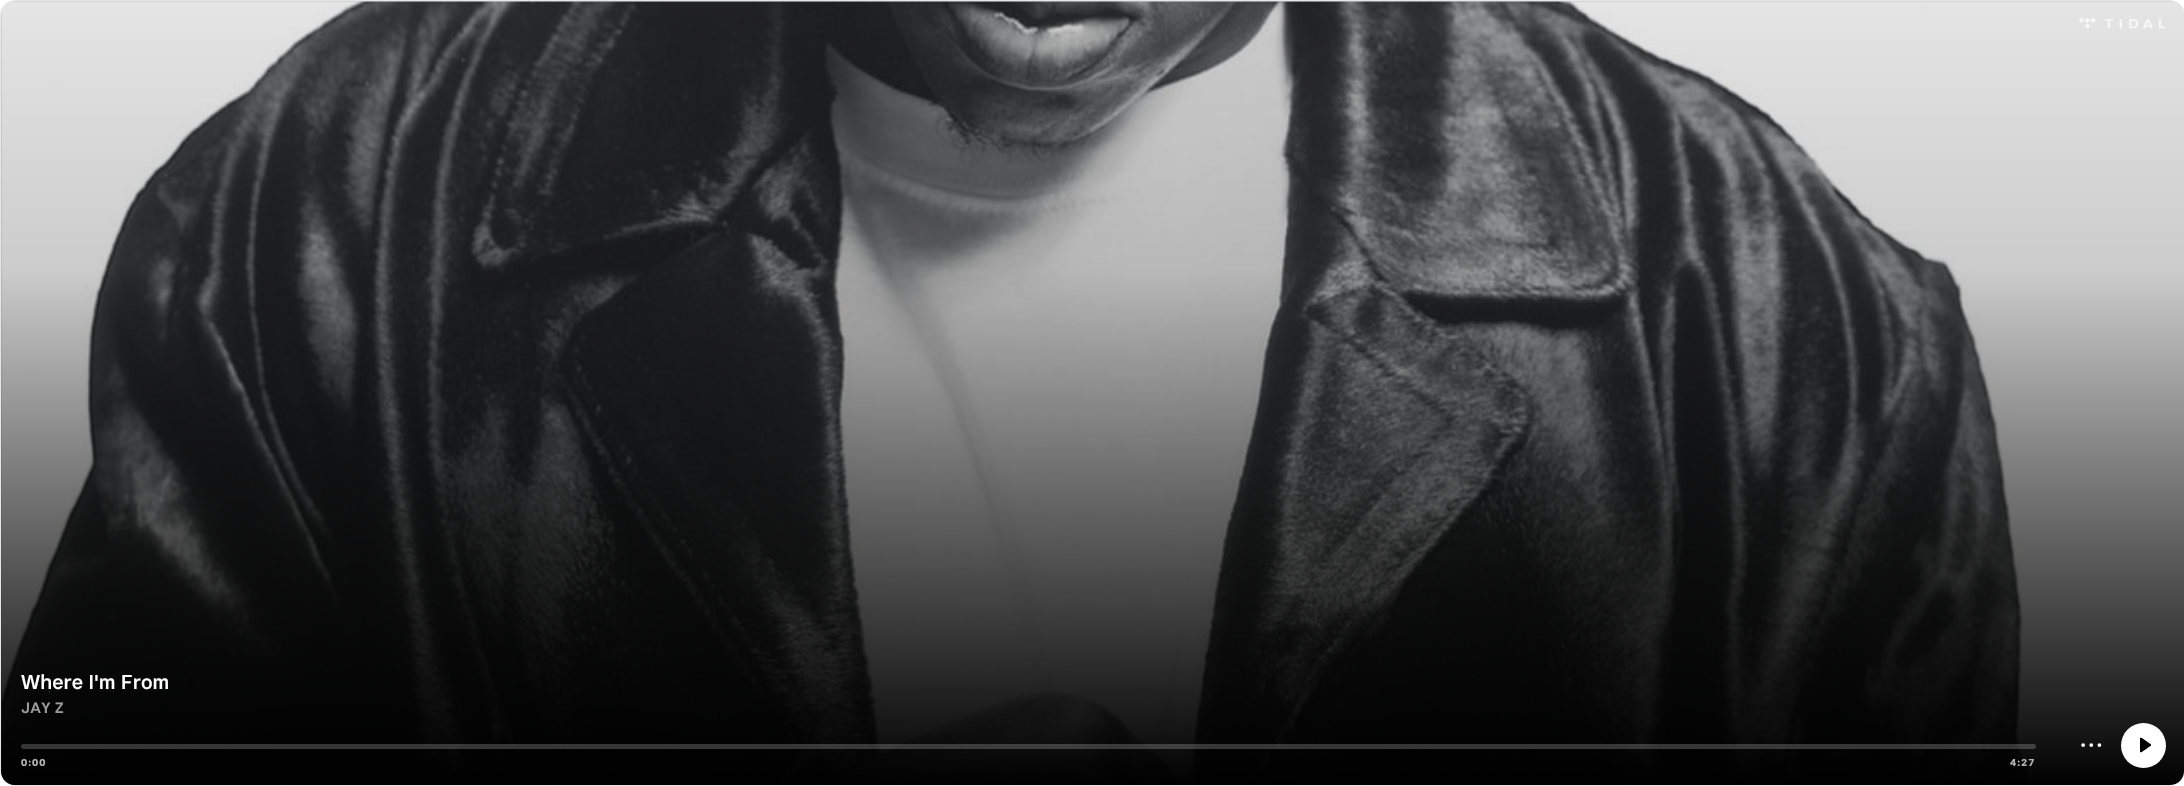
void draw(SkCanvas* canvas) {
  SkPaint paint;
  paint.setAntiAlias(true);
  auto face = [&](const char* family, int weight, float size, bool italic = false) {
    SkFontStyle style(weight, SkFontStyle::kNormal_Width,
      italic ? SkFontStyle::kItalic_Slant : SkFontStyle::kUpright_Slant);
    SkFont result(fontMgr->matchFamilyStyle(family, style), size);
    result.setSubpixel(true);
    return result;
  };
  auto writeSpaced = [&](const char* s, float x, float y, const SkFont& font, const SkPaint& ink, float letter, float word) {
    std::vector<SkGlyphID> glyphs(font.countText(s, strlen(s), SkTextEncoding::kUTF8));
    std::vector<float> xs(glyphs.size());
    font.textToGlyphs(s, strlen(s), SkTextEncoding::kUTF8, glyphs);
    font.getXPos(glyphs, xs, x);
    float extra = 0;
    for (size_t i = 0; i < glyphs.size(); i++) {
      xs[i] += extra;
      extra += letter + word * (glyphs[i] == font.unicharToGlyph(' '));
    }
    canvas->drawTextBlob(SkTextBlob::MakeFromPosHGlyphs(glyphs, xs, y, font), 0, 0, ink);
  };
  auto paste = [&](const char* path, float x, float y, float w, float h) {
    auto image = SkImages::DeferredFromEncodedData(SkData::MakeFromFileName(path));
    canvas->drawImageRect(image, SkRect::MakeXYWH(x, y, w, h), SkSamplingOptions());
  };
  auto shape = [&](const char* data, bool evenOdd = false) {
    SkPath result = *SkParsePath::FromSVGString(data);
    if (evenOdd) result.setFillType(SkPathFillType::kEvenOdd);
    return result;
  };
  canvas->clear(0xffffffff);
  paint.setStroke(true);
  paint.setStrokeWidth(1);
  paint.setColor(0xffe6e6e6);
  canvas->drawRoundRect(SkRect::MakeXYWH(0.5f, 0.5f, 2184, 785), 14.5f, 14.5f, paint);
  paint.setStroke(false);
  paint.setColor(0xffffffff);
  canvas->drawRoundRect(SkRect::MakeXYWH(1, 1, 2183, 784), 14, 14, paint);
  paste("img/2.png", 1, 1, 2034, 784);
  paint.setColor(0x14000000);
  canvas->drawPath(shape("M1 15V771L2 776V10ZM15 1L10 2H2175L2170 1Z", true), paint);
  {
    const SkColor colors[] = {0x1a000000, 0x33000000, 0xff000000};
    const float stops[] = {0, 0.34f, 1};
    const SkPoint ends[] = {{1094, 1.2f}, {1094, 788}};
    paint.setShader(SkGradientShader::MakeLinear(ends, colors, stops, 3, SkTileMode::kClamp));
    paint.setAlpha(255);
  }
  canvas->drawRoundRect(SkRect::MakeXYWH(1, 1, 2183, 784), 14, 14, paint);
  paste("img/1.png", 2079, 18, 86, 11);
  paste("img/3.png", 188, 679, 5, 7);
  paste("img/4.png", 2081, 743, 21, 4);
  paint.setShader(nullptr);
  paint.setColor(0xffffffff);
  canvas->drawCircle(2143.5f, 745.5f, 22.5f, paint);
  paste("img/5.png", 2140, 737, 12, 16);
  paint.setColor(0x33ffffff);
  canvas->drawRoundRect(SkRect::MakeXYWH(21, 744, 2015, 5), 2.5f, 2.5f, paint);
  auto f0 = face("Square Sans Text", 500, 20);
  paint.setColor(0xffffffff);
  canvas->drawString("Where I'm From", 21, 689, f0, paint);
  auto f1 = face("Square Sans Text", 600, 15);
  paint.setColor(0xff9b9b9b);
  writeSpaced("JAY Z", 21, 713, f1, paint, 0.25f, 0);
  auto f2 = face("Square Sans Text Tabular", 700, 10);
  paint.setColor(0xffb2b2b2);
  writeSpaced("0:00", 21, 766, f2, paint, 1, 0);
  writeSpaced("4:27", 2010, 766, f2, paint, 1, 0);
}
